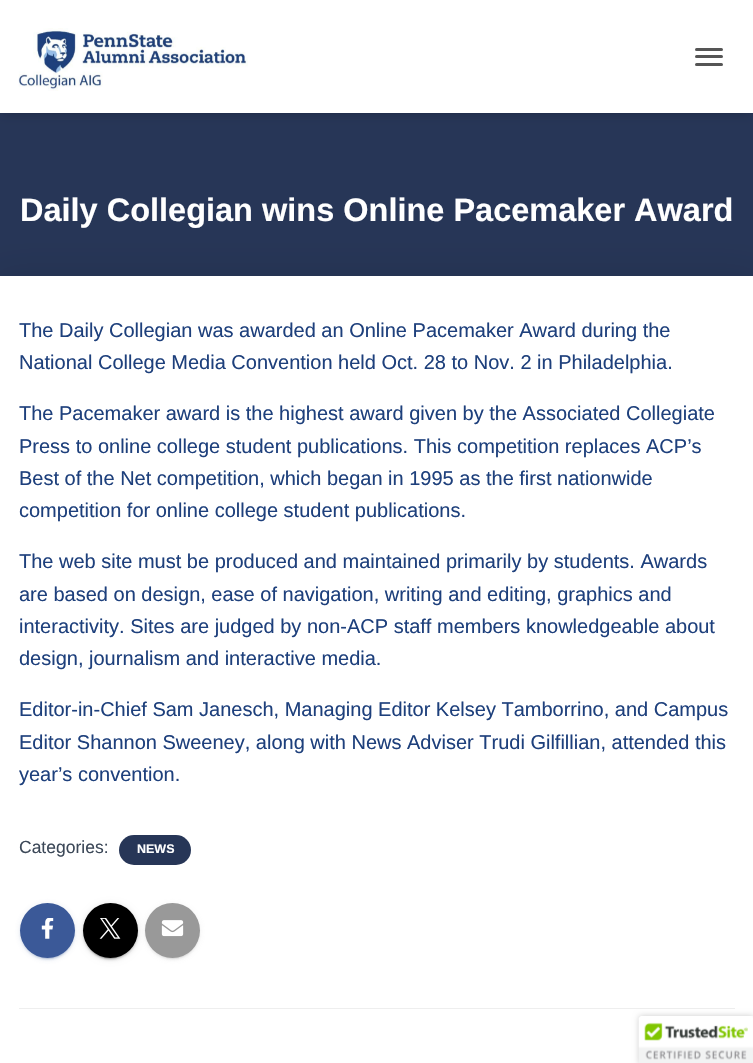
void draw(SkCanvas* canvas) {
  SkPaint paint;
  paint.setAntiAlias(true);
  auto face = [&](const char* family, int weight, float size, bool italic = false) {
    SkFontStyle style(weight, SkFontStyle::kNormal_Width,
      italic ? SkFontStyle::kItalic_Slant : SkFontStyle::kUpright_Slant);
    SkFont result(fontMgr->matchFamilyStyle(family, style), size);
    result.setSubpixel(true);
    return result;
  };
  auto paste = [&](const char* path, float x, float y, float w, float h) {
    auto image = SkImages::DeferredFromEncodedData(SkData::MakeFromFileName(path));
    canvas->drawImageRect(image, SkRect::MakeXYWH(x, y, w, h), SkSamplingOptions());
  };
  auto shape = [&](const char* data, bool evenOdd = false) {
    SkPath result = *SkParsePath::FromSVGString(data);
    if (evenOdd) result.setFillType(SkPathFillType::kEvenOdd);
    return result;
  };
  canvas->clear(0xff273657);
  paint.setColor(0x1f000000);
  paint.setMaskFilter(SkMaskFilter::MakeBlur(kNormal_SkBlurStyle, 6));
  canvas->drawRect(SkRect::MakeXYWH(0, 1, 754, 113), paint);
  paint.setMaskFilter(nullptr);
  paint.setColor(0x6b000000);
  paint.setMaskFilter(SkMaskFilter::MakeBlur(kNormal_SkBlurStyle, 6));
  canvas->drawRect(SkRect::MakeXYWH(8, 9, 738, 97), paint);
  paint.setMaskFilter(nullptr);
  paint.setColor(0xffffffff);
  canvas->drawRect(SkRect::MakeXYWH(0, 0, 753, 113), paint);
  paste("img/1.png", 18, 28, 230, 63);
  paint.setColor(0xff555555);
  canvas->drawRoundRect(SkRect::MakeXYWH(695, 48, 28, 3), 1.5f, 1.5f, paint);
  canvas->drawRoundRect(SkRect::MakeXYWH(695, 55, 28, 3), 1.5f, 1.5f, paint);
  canvas->drawRoundRect(SkRect::MakeXYWH(695, 63, 28, 3), 1.5f, 1.5f, paint);
  paint.setColor(0x1f000000);
  paint.setMaskFilter(SkMaskFilter::MakeBlur(kNormal_SkBlurStyle, 19));
  canvas->drawRect(SkRect::MakeXYWH(-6, 278, 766, 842), paint);
  paint.setMaskFilter(nullptr);
  paint.setColor(0xffffffff);
  canvas->drawRect(SkRect::MakeXYWH(0, 276, 753, 787), paint);
  paint.setColor(0xff273657);
  canvas->drawRoundRect(SkRect::MakeXYWH(119, 835, 72, 30), 15, 15, paint);
  paint.setColor(0x1f3b5998);
  paint.setMaskFilter(SkMaskFilter::MakeBlur(kNormal_SkBlurStyle, 3));
  canvas->drawRoundRect(SkRect::MakeXYWH(20, 904, 55, 55), 27.5f, 27.5f, paint);
  paint.setMaskFilter(nullptr);
  paint.setColor(0x333b5998);
  paint.setMaskFilter(SkMaskFilter::MakeBlur(kNormal_SkBlurStyle, 0.5f));
  canvas->drawRoundRect(SkRect::MakeXYWH(23, 909, 50, 50), 25, 25, paint);
  paint.setMaskFilter(nullptr);
  paint.setColor(0x243b5998);
  paint.setMaskFilter(SkMaskFilter::MakeBlur(kNormal_SkBlurStyle, 1));
  canvas->drawRoundRect(SkRect::MakeXYWH(20, 905, 55, 55), 27.5f, 27.5f, paint);
  paint.setMaskFilter(nullptr);
  paint.setColor(0xff3b5998);
  canvas->drawCircle(47.5f, 930.5f, 27.5f, paint);
  paste("img/2.png", 41, 918, 13, 21);
  paint.setColor(0x1f000000);
  paint.setMaskFilter(SkMaskFilter::MakeBlur(kNormal_SkBlurStyle, 3));
  canvas->drawRoundRect(SkRect::MakeXYWH(83, 904, 55, 55), 27.5f, 27.5f, paint);
  paint.setMaskFilter(nullptr);
  paint.setColor(0x33000000);
  paint.setMaskFilter(SkMaskFilter::MakeBlur(kNormal_SkBlurStyle, 0.5f));
  canvas->drawRoundRect(SkRect::MakeXYWH(85, 909, 50, 50), 25, 25, paint);
  paint.setMaskFilter(nullptr);
  paint.setColor(0x24000000);
  paint.setMaskFilter(SkMaskFilter::MakeBlur(kNormal_SkBlurStyle, 1));
  canvas->drawRoundRect(SkRect::MakeXYWH(83, 905, 55, 55), 27.5f, 27.5f, paint);
  paint.setMaskFilter(nullptr);
  paint.setColor(0xff000000);
  canvas->drawCircle(110.5f, 930.5f, 27.5f, paint);
  paste("img/3.png", 99, 918, 22, 21);
  paint.setColor(0x1f999999);
  paint.setMaskFilter(SkMaskFilter::MakeBlur(kNormal_SkBlurStyle, 3));
  canvas->drawRoundRect(SkRect::MakeXYWH(145, 904, 55, 55), 27.5f, 27.5f, paint);
  paint.setMaskFilter(nullptr);
  paint.setColor(0x33999999);
  paint.setMaskFilter(SkMaskFilter::MakeBlur(kNormal_SkBlurStyle, 0.5f));
  canvas->drawRoundRect(SkRect::MakeXYWH(148, 909, 50, 50), 25, 25, paint);
  paint.setMaskFilter(nullptr);
  paint.setColor(0x24999999);
  paint.setMaskFilter(SkMaskFilter::MakeBlur(kNormal_SkBlurStyle, 1));
  canvas->drawRoundRect(SkRect::MakeXYWH(145, 905, 55, 55), 27.5f, 27.5f, paint);
  paint.setMaskFilter(nullptr);
  paint.setColor(0xff999999);
  canvas->drawCircle(172.5f, 930.5f, 27.5f, paint);
  paste("img/4.png", 161, 920, 23, 17);
  paint.setColor(0xffeeeeee);
  canvas->drawRect(SkRect::MakeXYWH(19, 1008, 716, 1), paint);
  paint.setColor(0x33000000);
  paint.setMaskFilter(SkMaskFilter::MakeBlur(kNormal_SkBlurStyle, 3));
  canvas->drawRoundRect(SkRect::MakeXYWH(639, 1016, 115, 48), 2.5f, 2.5f, paint);
  paint.setMaskFilter(nullptr);
  paint.setColor(0xffffffff);
  canvas->drawPath(shape("M641.5 1016H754V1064H639V1018.5C639 1017 640 1016 641.5 1016Z"), paint);
  paste("img/5.png", 638, 1016, 115, 47);
  auto f0 = face("Liberation Sans", 700, 32.5f);
  canvas->drawString("Daily Collegian wins Online Pacemaker Award", 20, 221, f0, paint);
  auto f1 = face("Liberation Sans", 400, 20);
  paint.setColor(0xff1e407c);
  {
    const struct { const char* s; float x, y; } items[] = {
      {"The Daily Collegian was awarded an Online Pacemaker Award during the", 19, 337},
      {"National College Media Convention held Oct. 28 to Nov. 2 in Philadelphia.", 19, 369},
      {"The Pacemaker award is the highest award given by the Associated Collegiate", 19, 420},
      {"Press to online college student publications. This competition replaces ACP’s", 19, 453},
      {"Best of the Net competition, which began in 1995 as the first nationwide", 19, 485},
      {"competition for online college student publications.", 19, 517},
      {"The web site must be produced and maintained primarily by students. Awards", 19, 568},
      {"are based on design, ease of navigation, writing and editing, graphics and", 19, 601},
      {"interactivity. Sites are judged by non-ACP staff members knowledgeable about", 19, 633},
      {"design, journalism and interactive media.", 19, 665},
      {"Editor-in-Chief Sam Janesch, Managing Editor Kelsey Tamborrino, and Campus", 19, 716},
      {"Editor Shannon Sweeney, along with News Adviser Trudi Gilfillian, attended this", 19, 749},
      {"year’s convention.", 19, 781},
    };
    for (auto [s, x, y] : items) {
      canvas->drawString(s, x, y, f1, paint);
    }
  }
  auto f2 = face("Liberation Sans", 400, 17.5f);
  paint.setColor(0xff3c4858);
  canvas->drawString("Categories:", 19, 853, f2, paint);
  auto f3 = face("Liberation Sans", 700, 12.5f);
  paint.setColor(0xffffffff);
  canvas->drawString("NEWS", 137, 853, f3, paint);
}
